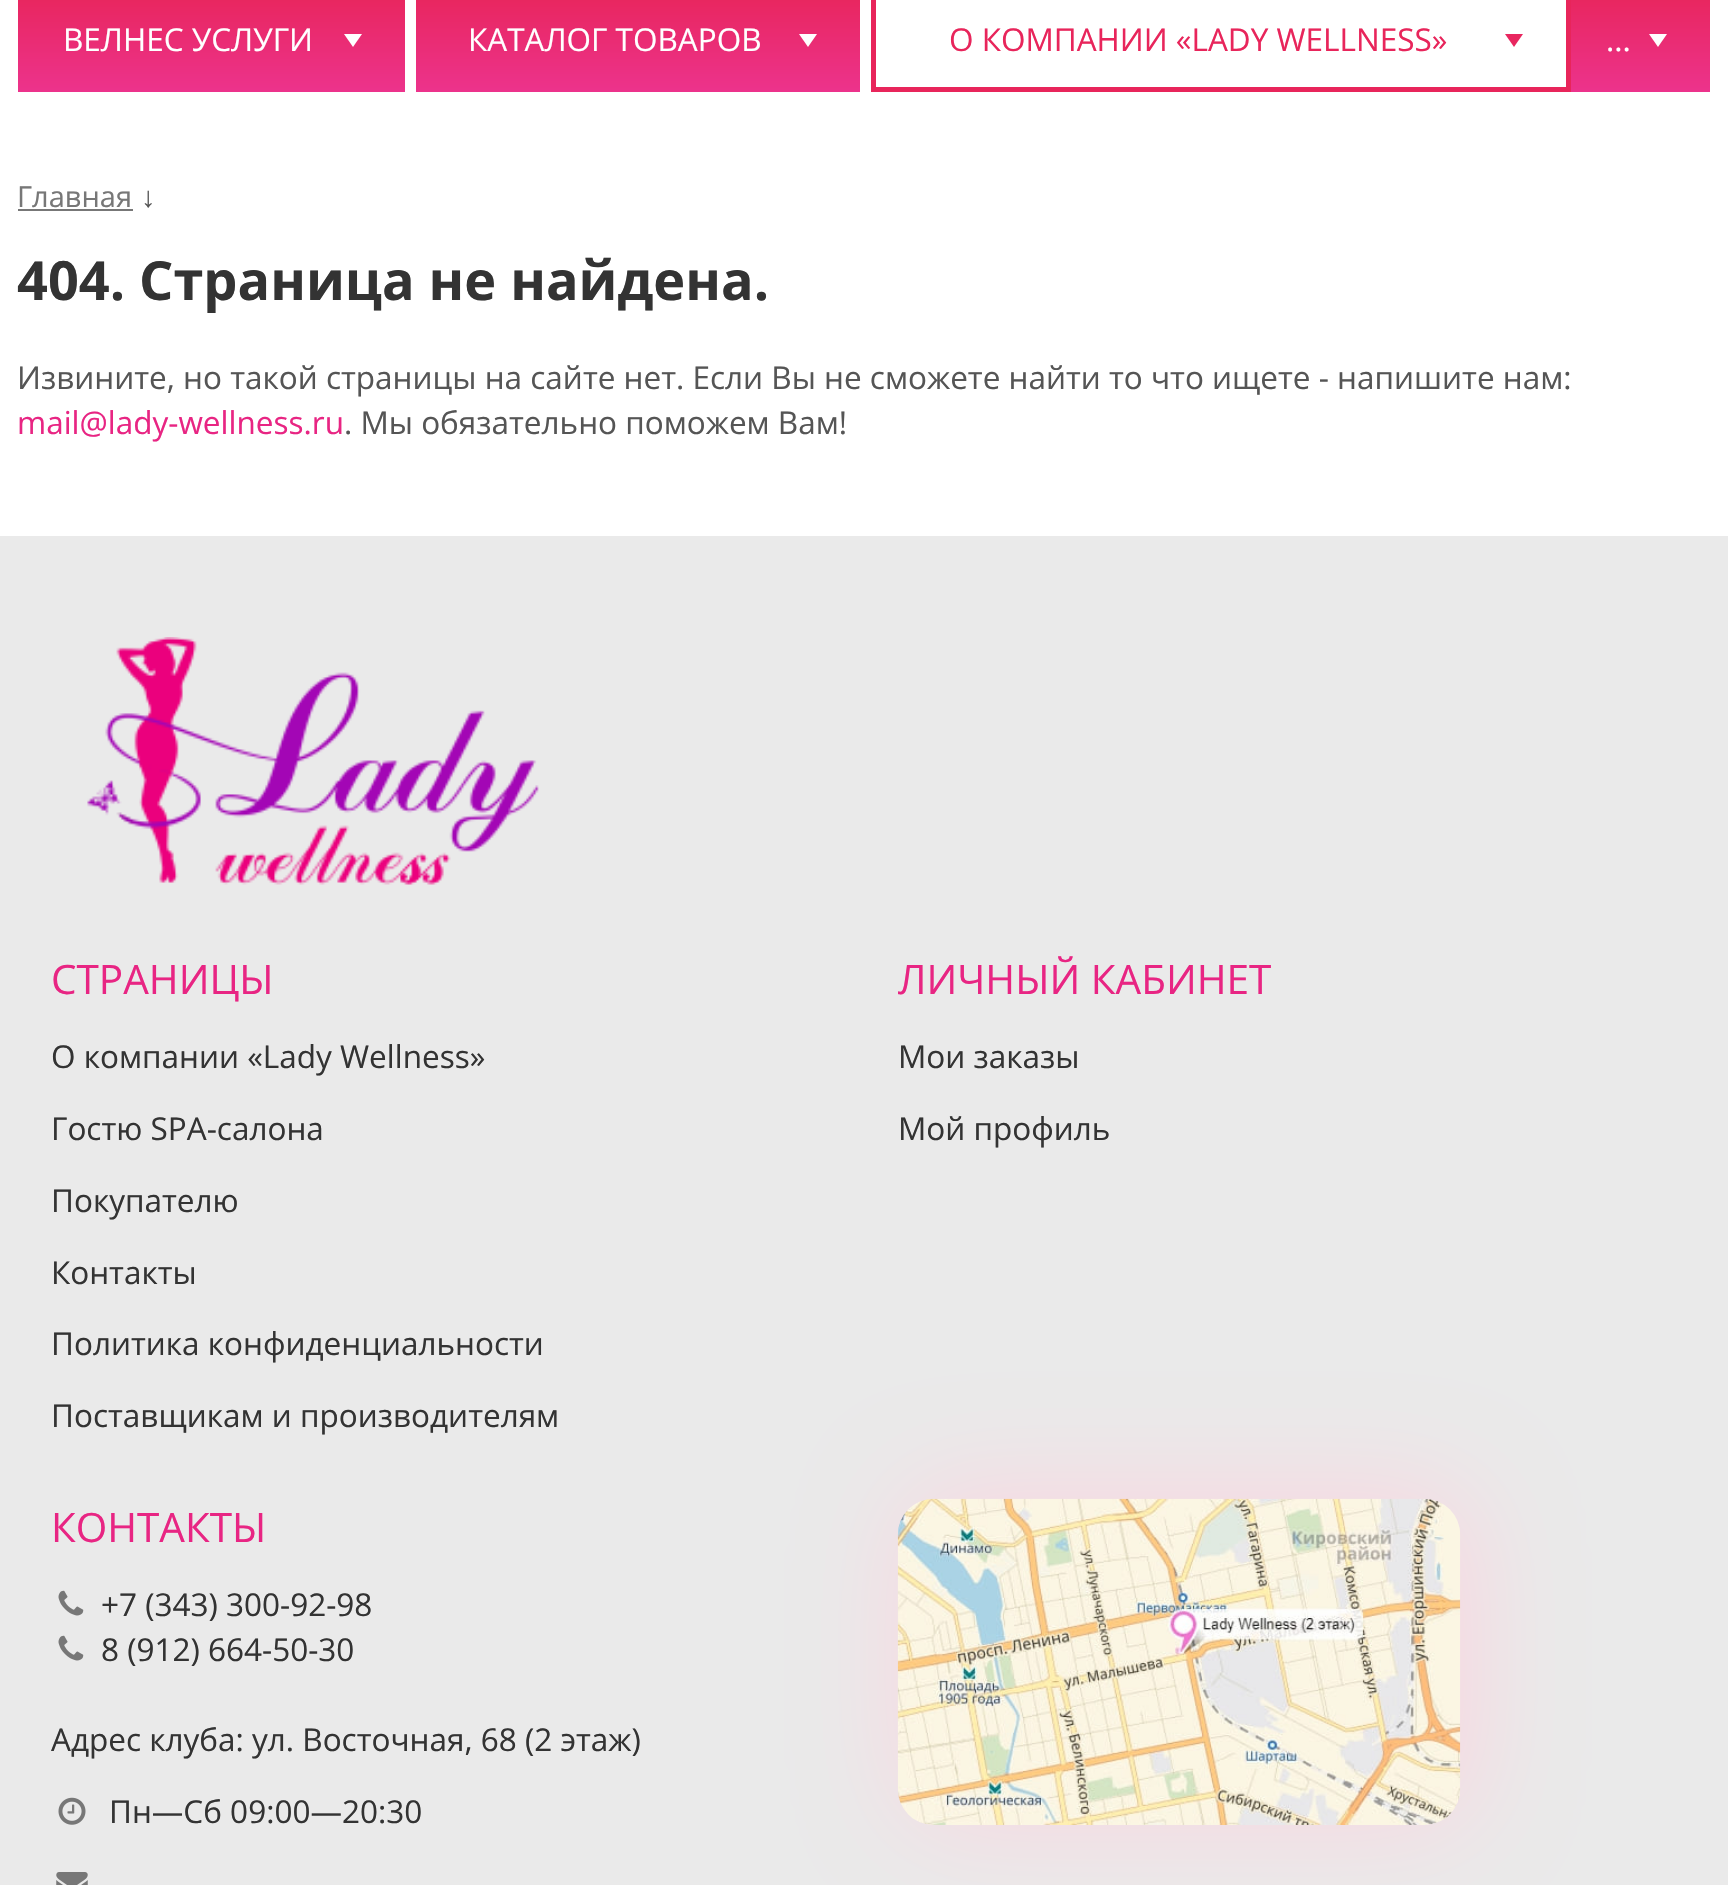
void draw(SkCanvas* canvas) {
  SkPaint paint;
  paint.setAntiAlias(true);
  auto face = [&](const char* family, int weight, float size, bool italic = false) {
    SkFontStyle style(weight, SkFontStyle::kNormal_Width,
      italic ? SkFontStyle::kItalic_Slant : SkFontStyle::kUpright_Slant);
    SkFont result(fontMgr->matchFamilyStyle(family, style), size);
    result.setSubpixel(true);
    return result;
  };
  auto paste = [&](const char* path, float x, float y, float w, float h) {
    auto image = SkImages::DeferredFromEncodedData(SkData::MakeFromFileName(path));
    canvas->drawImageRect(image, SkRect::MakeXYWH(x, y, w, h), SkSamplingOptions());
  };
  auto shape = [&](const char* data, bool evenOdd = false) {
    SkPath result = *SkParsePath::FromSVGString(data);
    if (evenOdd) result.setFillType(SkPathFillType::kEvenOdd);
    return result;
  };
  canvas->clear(0xffffffff);
  {
    const SkColor colors[] = {0xffe8255b, 0xffec338c};
    const float stops[] = {0, 1};
    const SkPoint ends[] = {{864, -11}, {864, 92}};
    paint.setShader(SkGradientShader::MakeLinear(ends, colors, stops, 2, SkTileMode::kClamp));
    paint.setAlpha(255);
  }
  canvas->drawRect(SkRect::MakeXYWH(18, 0, 1692, 92), paint);
  paint.setShader(nullptr);
  paint.setColor(0xffffffff);
  canvas->drawPath(shape("M344 34H362L353 47Z"), paint);
  canvas->drawRect(SkRect::MakeXYWH(860, 0, 11, 92), paint);
  canvas->drawRect(SkRect::MakeXYWH(405, 0, 11, 92), paint);
  canvas->drawPath(shape("M799 34H817L808 47Z"), paint);
  canvas->drawRect(SkRect::MakeXYWH(873.5f, -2.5f, 695, 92), paint);
  paint.setStroke(true);
  paint.setStrokeWidth(5);
  paint.setColor(0xffe8255b);
  canvas->drawRect(SkRect::MakeXYWH(873.5f, -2.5f, 695, 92), paint);
  paint.setStroke(false);
  paint.setColor(0xffe8265f);
  canvas->drawPath(shape("M1505 34H1523L1514 47Z"), paint);
  paint.setColor(0xffffffff);
  canvas->drawPath(shape("M1649 34H1667L1658 47Z"), paint);
  paint.setColor(0xff777777);
  canvas->drawRect(SkRect::MakeXYWH(18, 209, 115, 2), paint);
  paint.setColor(0xffeaeaea);
  canvas->drawRect(SkRect::MakeXYWH(0, 536, 1728, 1349), paint);
  paste("img/1.png", 87, 637, 452, 248);
  paste("img/2.png", 58, 1590, 26, 26);
  paste("img/2.png", 58, 1635, 26, 26);
  paste("img/3.png", 58, 1797, 28, 28);
  paste("img/4.png", 56, 1872, 32, 13);
  paint.setColor(0xfffbd5e0);
  paint.setMaskFilter(SkMaskFilter::MakeBlur(kNormal_SkBlurStyle, 56));
  canvas->drawRoundRect(SkRect::MakeXYWH(907, 1494, 562, 326), 36, 36, paint);
  paint.setMaskFilter(nullptr);
  paste("img/5.png", 897, 1498, 564, 327);
  auto f0 = face("Open Sans", 400, 31.5f);
  paint.setColor(0xffffffff);
  canvas->drawString("ВЕЛНЕС УСЛУГИ", 63, 51, f0, paint);
  canvas->drawString("КАТАЛОГ ТОВАРОВ", 468, 51, f0, paint);
  paint.setColor(0xffe8255b);
  canvas->drawString("О КОМПАНИИ «LADY WELLNESS»", 949, 51, f0, paint);
  paint.setColor(0xffffffff);
  canvas->drawString("...", 1606, 51, f0, paint);
  auto f1 = face("Open Sans", 400, 29);
  paint.setColor(0xff777777);
  canvas->drawString("Главная", 17, 207, f1, paint);
  auto f2 = face("Liberation Sans", 400, 29);
  paint.setColor(0xff555555);
  canvas->drawString("↓", 141, 207, f2, paint);
  auto f3 = face("Open Sans", 700, 54);
  paint.setColor(0xff333333);
  canvas->drawString("404. Страница не найдена.", 17, 300, f3, paint);
  paint.setColor(0xff555555);
  canvas->drawString("Извините, но такой страницы на сайте нет. Если Вы не сможете найти то что ищете - напишите нам:", 17, 389, f0, paint);
  paint.setColor(0xffe82583);
  canvas->drawString("mail@lady-wellness.ru", 17, 434, f0, paint);
  paint.setColor(0xff555555);
  canvas->drawString(". Мы обязательно поможем Вам!", 344, 434, f0, paint);
  auto f4 = face("Open Sans", 400, 40.5f);
  paint.setColor(0xffe82583);
  canvas->drawString("СТРАНИЦЫ", 51, 994, f4, paint);
  paint.setColor(0xff333333);
  {
    const struct { const char* s; float x, y; } items[] = {
      {"О компании «Lady Wellness»", 51, 1068},
      {"Гостю SPA-салона", 51, 1140},
      {"Покупателю", 51, 1212},
      {"Контакты", 51, 1284},
      {"Политика конфиденциальности", 51, 1355},
      {"Поставщикам и производителям", 51, 1427},
    };
    for (auto [s, x, y] : items) {
      canvas->drawString(s, x, y, f0, paint);
    }
  }
  paint.setColor(0xffe82583);
  canvas->drawString("ЛИЧНЫЙ КАБИНЕТ", 898, 994, f4, paint);
  paint.setColor(0xff333333);
  canvas->drawString("Мои заказы", 898, 1068, f0, paint);
  canvas->drawString("Мой профиль", 898, 1140, f0, paint);
  paint.setColor(0xffe82583);
  canvas->drawString("КОНТАКТЫ", 51, 1542, f4, paint);
  paint.setColor(0xff333333);
  {
    const struct { const char* s; float x, y; } items[] = {
      {"+7 (343) 300-92-98", 101, 1616},
      {"8 (912) 664-50-30", 101, 1661},
      {"Адрес клуба: ул. Восточная, 68 (2 этаж)", 51, 1751},
      {"Пн—Сб 09:00—20:30", 109, 1823},
    };
    for (auto [s, x, y] : items) {
      canvas->drawString(s, x, y, f0, paint);
    }
  }
}
